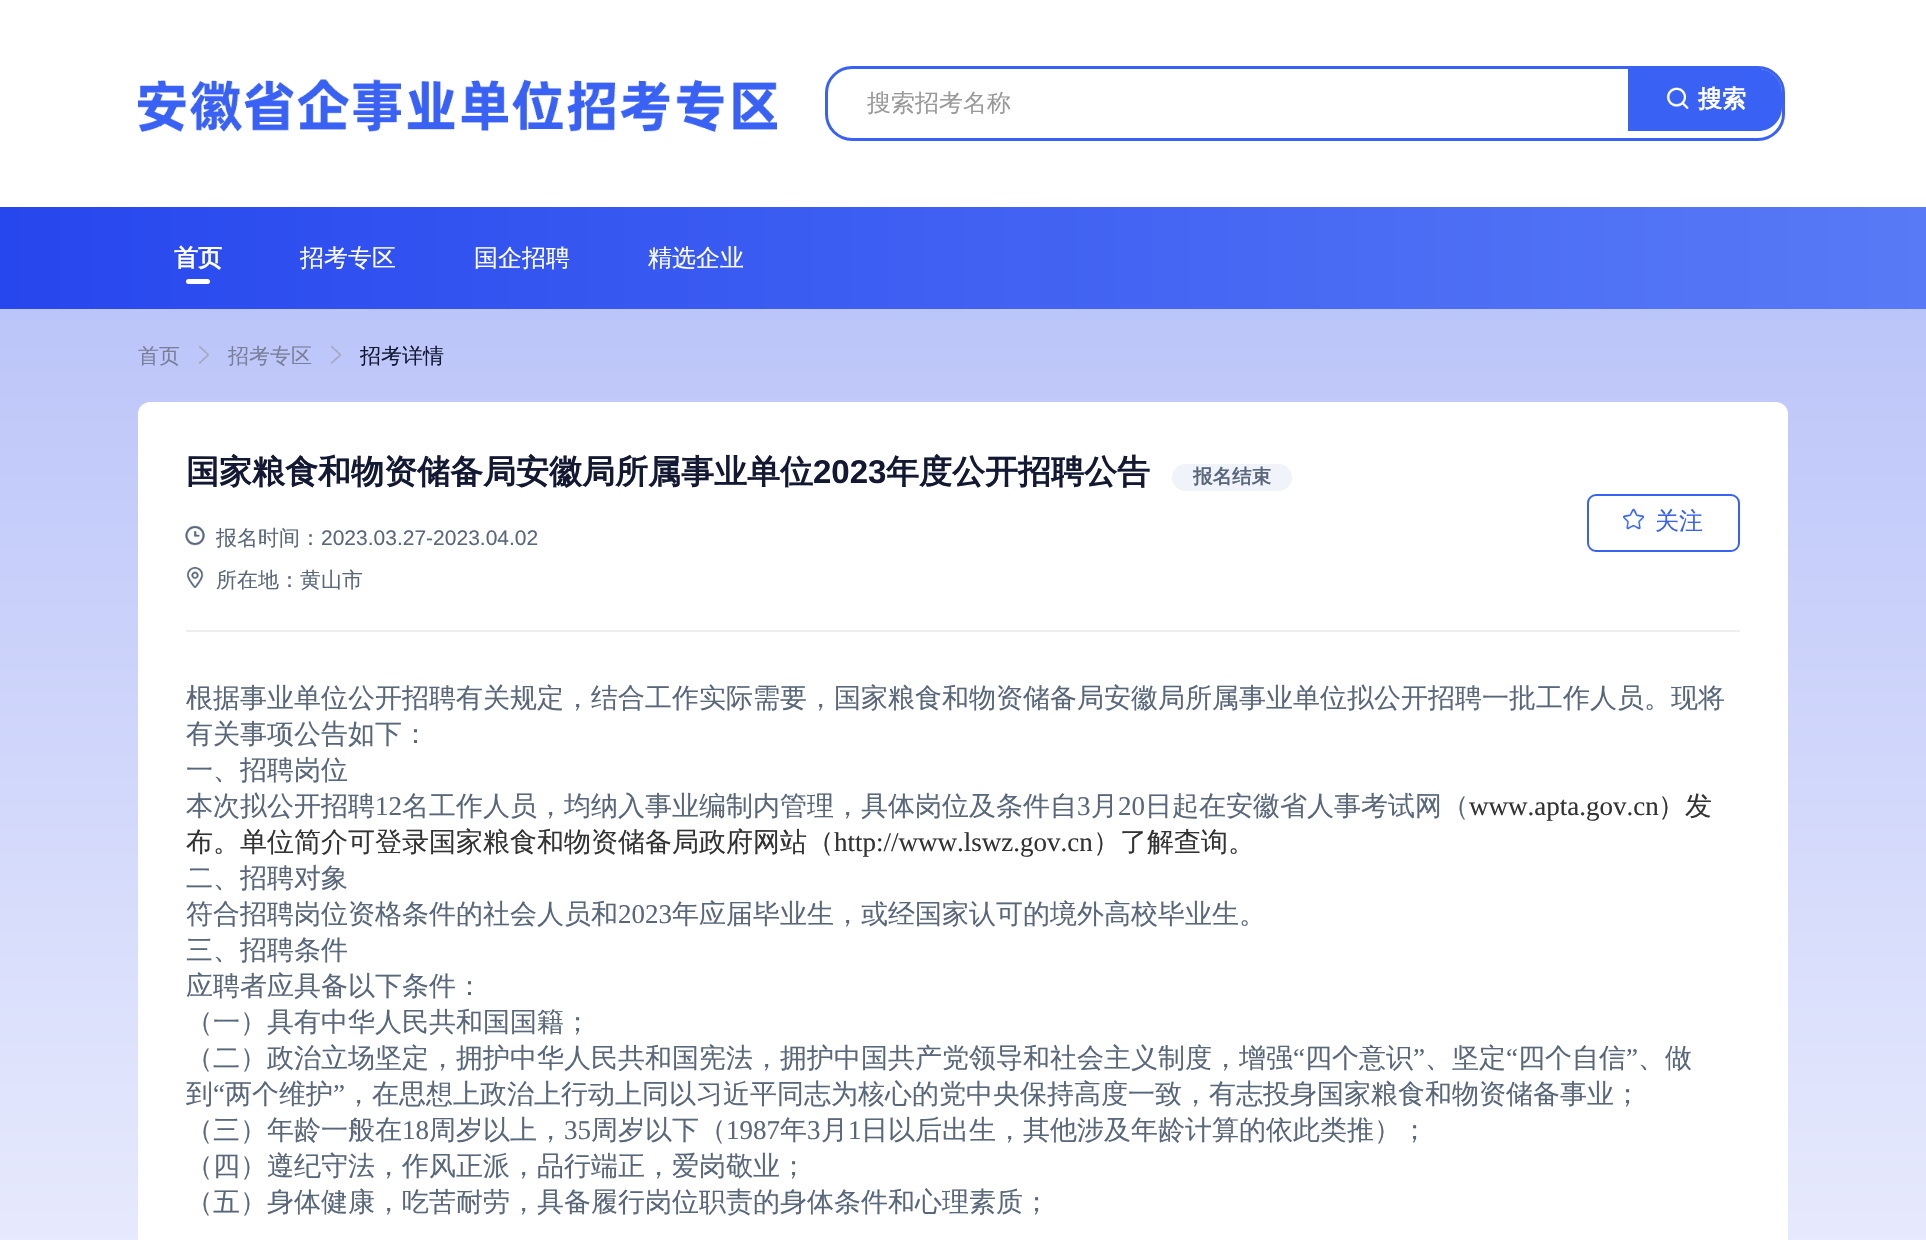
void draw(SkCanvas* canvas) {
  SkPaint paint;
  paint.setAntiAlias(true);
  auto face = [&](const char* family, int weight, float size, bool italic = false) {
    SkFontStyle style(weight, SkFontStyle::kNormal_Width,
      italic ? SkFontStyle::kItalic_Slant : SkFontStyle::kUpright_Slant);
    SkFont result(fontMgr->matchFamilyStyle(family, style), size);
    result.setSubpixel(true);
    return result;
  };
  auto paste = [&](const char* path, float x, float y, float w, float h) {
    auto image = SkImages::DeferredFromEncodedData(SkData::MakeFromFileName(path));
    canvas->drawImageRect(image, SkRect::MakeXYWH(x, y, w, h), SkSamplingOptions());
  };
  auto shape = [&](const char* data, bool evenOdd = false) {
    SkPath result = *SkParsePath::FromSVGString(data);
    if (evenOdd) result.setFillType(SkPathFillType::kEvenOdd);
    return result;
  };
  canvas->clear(0xffffffff);
  paste("img/1.png", 138, 79, 639, 53);
  paint.setStroke(true);
  paint.setStrokeWidth(3);
  paint.setColor(0xff3961f4);
  canvas->drawRoundRect(SkRect::MakeXYWH(826.5f, 67.5f, 957, 72), 25.5f, 25.5f, paint);
  paint.setStroke(false);
  canvas->drawPath(shape("M1628 69H1758C1771.5 69 1782 79.5 1782 93V107C1782 120.5 1771.5 131 1758 131H1628Z"), paint);
  paste("img/2.png", 1666, 87, 23, 23);
  {
    const SkColor colors[] = {0xff2747ee, 0xff587af6, 0xffffffff};
    const float stops[] = {0, 1, 1};
    const SkPoint ends[] = {{0, 258}, {1926, 258}};
    paint.setShader(SkGradientShader::MakeLinear(ends, colors, stops, 3, SkTileMode::kClamp));
    paint.setAlpha(255);
  }
  canvas->drawRect(SkRect::MakeXYWH(0, 207, 1926, 102), paint);
  paint.setShader(nullptr);
  paint.setColor(0xffffffff);
  canvas->drawRoundRect(SkRect::MakeXYWH(186, 279, 24, 5), 2.5f, 2.5f, paint);
  {
    const SkColor colors[] = {0xffbcc5f9, 0xfff6f7fe};
    const float stops[] = {0, 0.28f};
    const SkPoint ends[] = {{963, 309}, {963, 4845}};
    paint.setShader(SkGradientShader::MakeLinear(ends, colors, stops, 2, SkTileMode::kClamp));
    paint.setAlpha(255);
  }
  canvas->drawRect(SkRect::MakeXYWH(0, 309, 1926, 931), paint);
  paste("img/3.png", 198, 345, 12, 19);
  paste("img/4.png", 330, 345, 12, 19);
  paint.setShader(nullptr);
  paint.setColor(0xffffffff);
  canvas->drawRoundRect(SkRect::MakeXYWH(138, 402, 1650, 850), 12, 12, paint);
  paint.setColor(0xffeeeeee);
  canvas->drawRect(SkRect::MakeXYWH(186, 630, 1554, 2), paint);
  paint.setColor(0xfff1f3fa);
  canvas->drawRoundRect(SkRect::MakeXYWH(1172, 464, 120, 27), 13.5f, 13.5f, paint);
  paste("img/5.png", 185, 525, 20, 21);
  paste("img/6.png", 186, 567, 18, 21);
  paint.setStroke(true);
  paint.setStrokeWidth(2);
  paint.setColor(0xff3961f4);
  canvas->drawRoundRect(SkRect::MakeXYWH(1588, 495, 151, 56), 8, 8, paint);
  paste("img/7.png", 1622, 508, 23, 22);
  auto f0 = face("WenQuanYi Zen Hei", 500, 24);
  paint.setStroke(false);
  paint.setColor(0xff999999);
  canvas->drawString("搜索招考名称", 867, 111, f0, paint);
  auto f1 = face("WenQuanYi Zen Hei", 700, 24);
  paint.setColor(0xffffffff);
  canvas->drawString("搜索", 1698, 107, f1, paint);
  canvas->drawString("首页", 174, 266, f1, paint);
  {
    const struct { const char* s; float x, y; } items[] = {
      {"招考专区", 300, 266},
      {"国企招聘", 474, 266},
      {"精选企业", 648, 266},
    };
    for (auto [s, x, y] : items) {
      canvas->drawString(s, x, y, f0, paint);
    }
  }
  auto f2 = face("WenQuanYi Zen Hei", 500, 21);
  paint.setColor(0xff7a7f99);
  canvas->drawString("首页", 138, 363, f2, paint);
  canvas->drawString("招考专区", 228, 363, f2, paint);
  paint.setColor(0xff141933);
  canvas->drawString("招考详情", 360, 363, f2, paint);
  auto f3 = face("WenQuanYi Zen Hei", 700, 33);
  canvas->drawString("国家粮食和物资储备局安徽局所属事业单位", 186, 483, f3, paint);
  auto f4 = face("Liberation Sans", 700, 33);
  canvas->drawString("2023", 813, 483, f4, paint);
  canvas->drawString("年度公开招聘公告", 886, 483, f3, paint);
  auto f5 = face("WenQuanYi Zen Hei", 700, 19.5f);
  paint.setColor(0xff59677a);
  canvas->drawString("报名结束", 1193, 483, f5, paint);
  canvas->drawString("报名时间：", 216, 545, f2, paint);
  auto f6 = face("Liberation Sans", 400, 21);
  canvas->drawString("2023.03.27-2023.04.02", 321, 545, f6, paint);
  canvas->drawString("所在地：黄山市", 216, 587, f2, paint);
  paint.setColor(0xff3961f4);
  canvas->drawString("关注", 1655, 529, f0, paint);
  auto f7 = face("WenQuanYi Zen Hei", 500, 27);
  paint.setColor(0xff59677a);
  {
    const struct { const char* s; float x, y; } items[] = {
      {"根据事业单位公开招聘有关规定，结合工作实际需要，国家粮食和物资储备局安徽局所属事业单位拟公开招聘一批工作人员。现将", 186, 707},
      {"有关事项公告如下：", 186, 743},
      {"一、招聘岗位", 186, 779},
      {"本次拟公开招聘", 186, 815},
    };
    for (auto [s, x, y] : items) {
      canvas->drawString(s, x, y, f7, paint);
    }
  }
  auto f8 = face("Liberation Serif", 400, 27);
  canvas->drawString("12", 375, 815, f8, paint);
  canvas->drawString("名工作人员，均纳入事业编制内管理，具体岗位及条件自", 402, 815, f7, paint);
  canvas->drawString("3", 1077, 815, f8, paint);
  canvas->drawString("月", 1091, 815, f7, paint);
  canvas->drawString("20", 1118, 815, f8, paint);
  canvas->drawString("日起在安徽省人事考试网（", 1145, 815, f7, paint);
  paint.setColor(0xff333333);
  canvas->drawString("www.apta.gov.cn", 1469, 815, f8, paint);
  canvas->drawString("）发", 1658, 815, f7, paint);
  canvas->drawString("布。单位简介可登录国家粮食和物资储备局政府网站（", 186, 851, f7, paint);
  canvas->drawString("http://www.lswz.gov.cn", 834, 851, f8, paint);
  canvas->drawString("）了解查询。", 1093, 851, f7, paint);
  paint.setColor(0xff59677a);
  canvas->drawString("二、招聘对象", 186, 887, f7, paint);
  canvas->drawString("符合招聘岗位资格条件的社会人员和", 186, 923, f7, paint);
  canvas->drawString("2023", 618, 923, f8, paint);
  {
    const struct { const char* s; float x, y; } items[] = {
      {"年应届毕业生，或经国家认可的境外高校毕业生。", 672, 923},
      {"三、招聘条件", 186, 959},
      {"应聘者应具备以下条件：", 186, 995},
      {"（一）具有中华人民共和国国籍；", 186, 1031},
      {"（二）政治立场坚定，拥护中华人民共和国宪法，拥护中国共产党领导和社会主义制度，增强", 186, 1067},
    };
    for (auto [s, x, y] : items) {
      canvas->drawString(s, x, y, f7, paint);
    }
  }
  canvas->drawString("“", 1293, 1067, f8, paint);
  canvas->drawString("四个意识", 1305, 1067, f7, paint);
  canvas->drawString("”", 1413, 1067, f8, paint);
  canvas->drawString("、坚定", 1425, 1067, f7, paint);
  canvas->drawString("“", 1506, 1067, f8, paint);
  canvas->drawString("四个自信", 1518, 1067, f7, paint);
  canvas->drawString("”", 1626, 1067, f8, paint);
  canvas->drawString("、做", 1638, 1067, f7, paint);
  canvas->drawString("到", 186, 1103, f7, paint);
  canvas->drawString("“", 213, 1103, f8, paint);
  canvas->drawString("两个维护", 225, 1103, f7, paint);
  canvas->drawString("”", 333, 1103, f8, paint);
  canvas->drawString("，在思想上政治上行动上同以习近平同志为核心的党中央保持高度一致，有志投身国家粮食和物资储备事业；", 345, 1103, f7, paint);
  canvas->drawString("（三）年龄一般在", 186, 1139, f7, paint);
  canvas->drawString("18", 402, 1139, f8, paint);
  canvas->drawString("周岁以上，", 429, 1139, f7, paint);
  canvas->drawString("35", 564, 1139, f8, paint);
  canvas->drawString("周岁以下（", 591, 1139, f7, paint);
  canvas->drawString("1987", 726, 1139, f8, paint);
  canvas->drawString("年", 780, 1139, f7, paint);
  canvas->drawString("3", 807, 1139, f8, paint);
  canvas->drawString("月", 821, 1139, f7, paint);
  canvas->drawString("1", 848, 1139, f8, paint);
  {
    const struct { const char* s; float x, y; } items[] = {
      {"日以后出生，其他涉及年龄计算的依此类推）；", 861, 1139},
      {"（四）遵纪守法，作风正派，品行端正，爱岗敬业；", 186, 1175},
      {"（五）身体健康，吃苦耐劳，具备履行岗位职责的身体条件和心理素质；", 186, 1211},
    };
    for (auto [s, x, y] : items) {
      canvas->drawString(s, x, y, f7, paint);
    }
  }
}
